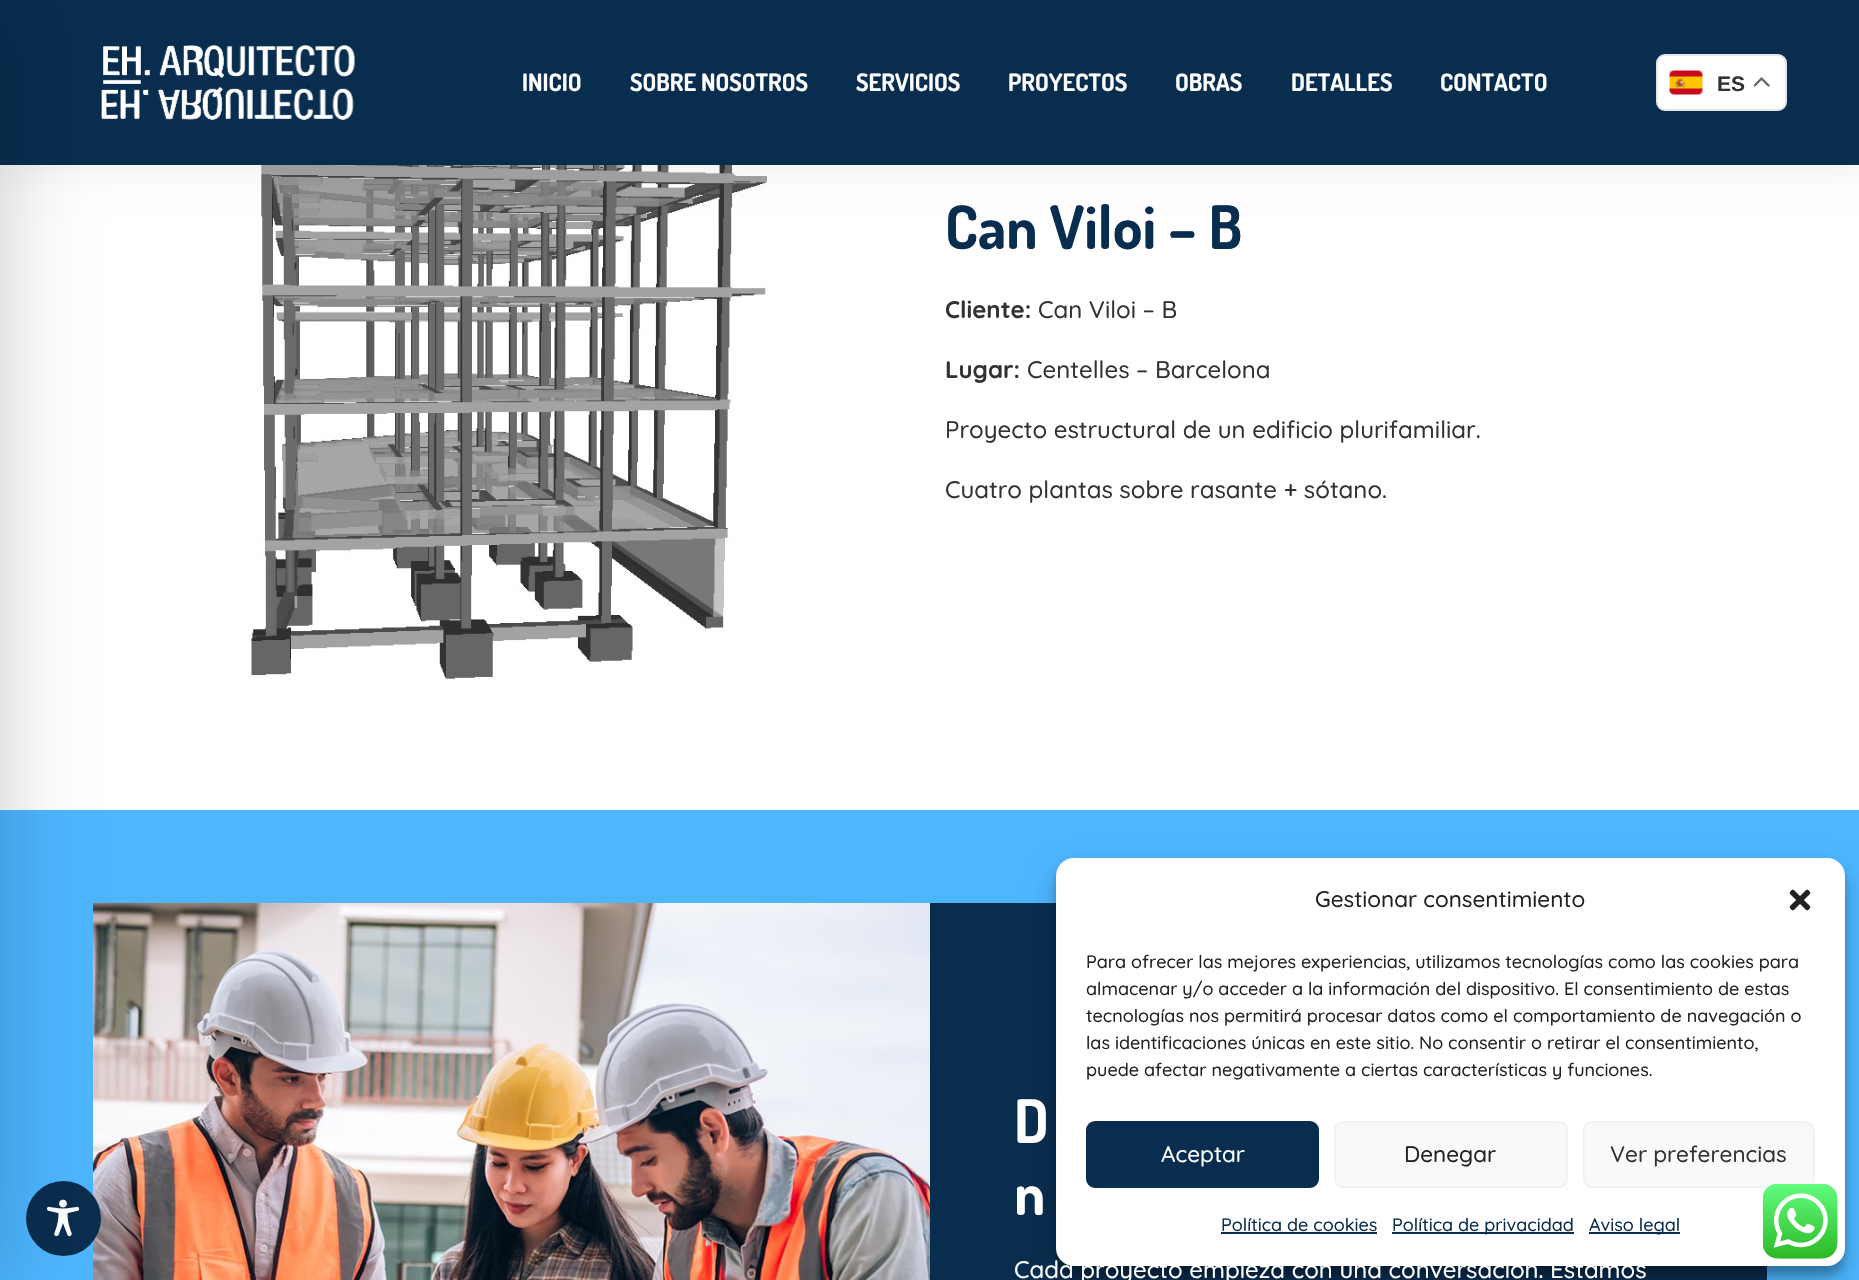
void draw(SkCanvas* canvas) {
  SkPaint paint;
  paint.setAntiAlias(true);
  auto face = [&](const char* family, int weight, float size, bool italic = false) {
    SkFontStyle style(weight, SkFontStyle::kNormal_Width,
      italic ? SkFontStyle::kItalic_Slant : SkFontStyle::kUpright_Slant);
    SkFont result(fontMgr->matchFamilyStyle(family, style), size);
    result.setSubpixel(true);
    return result;
  };
  auto paste = [&](const char* path, float x, float y, float w, float h) {
    auto image = SkImages::DeferredFromEncodedData(SkData::MakeFromFileName(path));
    canvas->drawImageRect(image, SkRect::MakeXYWH(x, y, w, h), SkSamplingOptions());
  };
  canvas->clear(0xffffffff);
  paste("img/4.png", 251, 165, 519, 514);
  paint.setColor(0x0d000000);
  paint.setMaskFilter(SkMaskFilter::MakeBlur(kNormal_SkBlurStyle, 15));
  canvas->drawRect(SkRect::MakeXYWH(-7, -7, 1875, 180), paint);
  paint.setMaskFilter(nullptr);
  paint.setColor(0xff092d4f);
  canvas->drawRect(SkRect::MakeXYWH(0, 0, 1859, 165), paint);
  paste("img/1.png", 101, 45, 254, 75);
  paint.setColor(0xff4db6ff);
  canvas->drawRect(SkRect::MakeXYWH(0, 810, 1859, 470), paint);
  paste("img/7.png", 93, 903, 837, 377);
  paint.setColor(0xff092d4f);
  canvas->drawCircle(63.5f, 1218.5f, 37.5f, paint);
  paste("img/6.png", 46, 1199, 34, 38);
  paint.setColor(0x33000000);
  paint.setMaskFilter(SkMaskFilter::MakeBlur(kNormal_SkBlurStyle, 45));
  canvas->drawRect(SkRect::MakeXYWH(-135, 15, 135, 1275), paint);
  paint.setMaskFilter(nullptr);
  paint.setColor(0xffffffff);
  canvas->drawRoundRect(SkRect::MakeXYWH(1657, 55, 129, 55), 8, 8, paint);
  paint.setStroke(true);
  paint.setStrokeWidth(2);
  paint.setColor(0xffe5e5e5);
  canvas->drawRoundRect(SkRect::MakeXYWH(1657, 55, 129, 55), 8, 8, paint);
  paste("img/2.png", 1669, 70, 34, 25);
  paste("img/3.png", 1754, 77, 16, 10);
  paint.setStroke(false);
  paint.setColor(0xff092d4f);
  canvas->drawRect(SkRect::MakeXYWH(930, 903, 837, 377), paint);
  paint.setColor(0x3b000000);
  paint.setMaskFilter(SkMaskFilter::MakeBlur(kNormal_SkBlurStyle, 4.5f));
  canvas->drawRoundRect(SkRect::MakeXYWH(1056, 867, 789, 408), 18, 18, paint);
  paint.setMaskFilter(nullptr);
  paint.setColor(0x30000000);
  paint.setMaskFilter(SkMaskFilter::MakeBlur(kNormal_SkBlurStyle, 15));
  canvas->drawRoundRect(SkRect::MakeXYWH(1056, 873, 789, 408), 18, 18, paint);
  paint.setMaskFilter(nullptr);
  paint.setColor(0xffffffff);
  canvas->drawRoundRect(SkRect::MakeXYWH(1056, 858, 789, 408), 18, 18, paint);
  paste("img/5.png", 1789, 889, 22, 22);
  paint.setColor(0xff092d4f);
  canvas->drawRoundRect(SkRect::MakeXYWH(1087, 1122, 231, 65), 8, 8, paint);
  paint.setStroke(true);
  canvas->drawRoundRect(SkRect::MakeXYWH(1087, 1122, 231, 65), 8, 8, paint);
  paint.setStroke(false);
  paint.setColor(0xfff9f9f9);
  canvas->drawRoundRect(SkRect::MakeXYWH(1335, 1122, 232, 65), 8, 8, paint);
  paint.setStroke(true);
  paint.setColor(0xfff2f2f2);
  canvas->drawRoundRect(SkRect::MakeXYWH(1335, 1122, 232, 65), 8, 8, paint);
  paint.setStroke(false);
  paint.setColor(0xfff9f9f9);
  canvas->drawRoundRect(SkRect::MakeXYWH(1584, 1122, 230, 65), 8, 8, paint);
  paint.setStroke(true);
  paint.setColor(0xfff2f2f2);
  canvas->drawRoundRect(SkRect::MakeXYWH(1584, 1122, 230, 65), 8, 8, paint);
  paint.setStroke(false);
  {
    const struct { float x, y, w, h; SkColor color; } items[] = {
      {1221, 1232, 156, 2, 0xff092d4f},
      {1392, 1232, 182, 2, 0xff092d4f},
      {1589, 1232, 91, 2, 0xff092d4f},
    };
    for (auto [x, y, w, h, color] : items) {
      paint.setColor(color);
      canvas->drawRect(SkRect::MakeXYWH(x, y, w, h), paint);
    }
  }
  paste("img/8.png", 1763, 1184, 75, 75);
  auto f0 = face("Dosis", 700, 24);
  paint.setColor(0xffffffff);
  {
    const struct { const char* s; float x, y; } items[] = {
      {"INICIO", 522, 91},
      {"SOBRE NOSOTROS", 630, 91},
      {"SERVICIOS", 856, 91},
      {"PROYECTOS", 1008, 91},
      {"OBRAS", 1175, 91},
      {"DETALLES", 1291, 91},
      {"CONTACTO", 1440, 91},
    };
    for (auto [s, x, y] : items) {
      canvas->drawString(s, x, y, f0, paint);
    }
  }
  auto f1 = face("Liberation Sans", 700, 21);
  paint.setColor(0xff333333);
  canvas->drawString("ES", 1717, 91, f1, paint);
  auto f2 = face("Dosis", 700, 60);
  paint.setColor(0xff092d4f);
  canvas->drawString("Can Viloi – B", 945, 249, f2, paint);
  auto f3 = face("Quicksand", 700, 24);
  paint.setColor(0xff333333);
  canvas->drawString("Cliente:", 945, 318, f3, paint);
  auto f4 = face("Quicksand", 500, 24);
  canvas->drawString("Can Viloi – B", 1038, 318, f4, paint);
  canvas->drawString("Lugar:", 945, 378, f3, paint);
  {
    const struct { const char* s; float x, y; } items[] = {
      {"Centelles – Barcelona", 1027, 378},
      {"Proyecto estructural de un edificio plurifamiliar.", 945, 438},
      {"Cuatro plantas sobre rasante + sótano.", 945, 498},
    };
    for (auto [s, x, y] : items) {
      canvas->drawString(s, x, y, f4, paint);
    }
  }
  auto f5 = face("Quicksand", 500, 22.5f);
  paint.setColor(0xff222222);
  canvas->drawString("Gestionar consentimiento", 1315, 907, f5, paint);
  auto f6 = face("Quicksand", 500, 18);
  {
    const struct { const char* s; float x, y; } items[] = {
      {"Para ofrecer las mejores experiencias, utilizamos tecnologías como las cookies para", 1086, 968},
      {"almacenar y/o acceder a la información del dispositivo. El consentimiento de estas", 1086, 995},
      {"tecnologías nos permitirá procesar datos como el comportamiento de navegación o", 1086, 1022},
      {"las identificaciones únicas en este sitio. No consentir o retirar el consentimiento,", 1086, 1049},
      {"puede afectar negativamente a ciertas características y funciones.", 1086, 1076},
    };
    for (auto [s, x, y] : items) {
      canvas->drawString(s, x, y, f6, paint);
    }
  }
  paint.setColor(0xffffffff);
  canvas->drawString("Aceptar", 1161, 1162, f5, paint);
  paint.setColor(0xff222222);
  canvas->drawString("Denegar", 1404, 1162, f5, paint);
  paint.setColor(0xff333333);
  canvas->drawString("Ver preferencias", 1610, 1162, f5, paint);
  paint.setColor(0xff092d4f);
  {
    const struct { const char* s; float x, y; } items[] = {
      {"Política de cookies", 1221, 1231},
      {"Política de privacidad", 1392, 1231},
      {"Aviso legal", 1589, 1231},
    };
    for (auto [s, x, y] : items) {
      canvas->drawString(s, x, y, f6, paint);
    }
  }
  paint.setColor(0xffffffff);
  canvas->drawString("D", 1014, 1143, f2, paint);
  canvas->drawString("n", 1014, 1215, f2, paint);
  canvas->drawString("Cada proyecto empieza con una conversación. Estamos", 1014, 1278, f4, paint);
}
